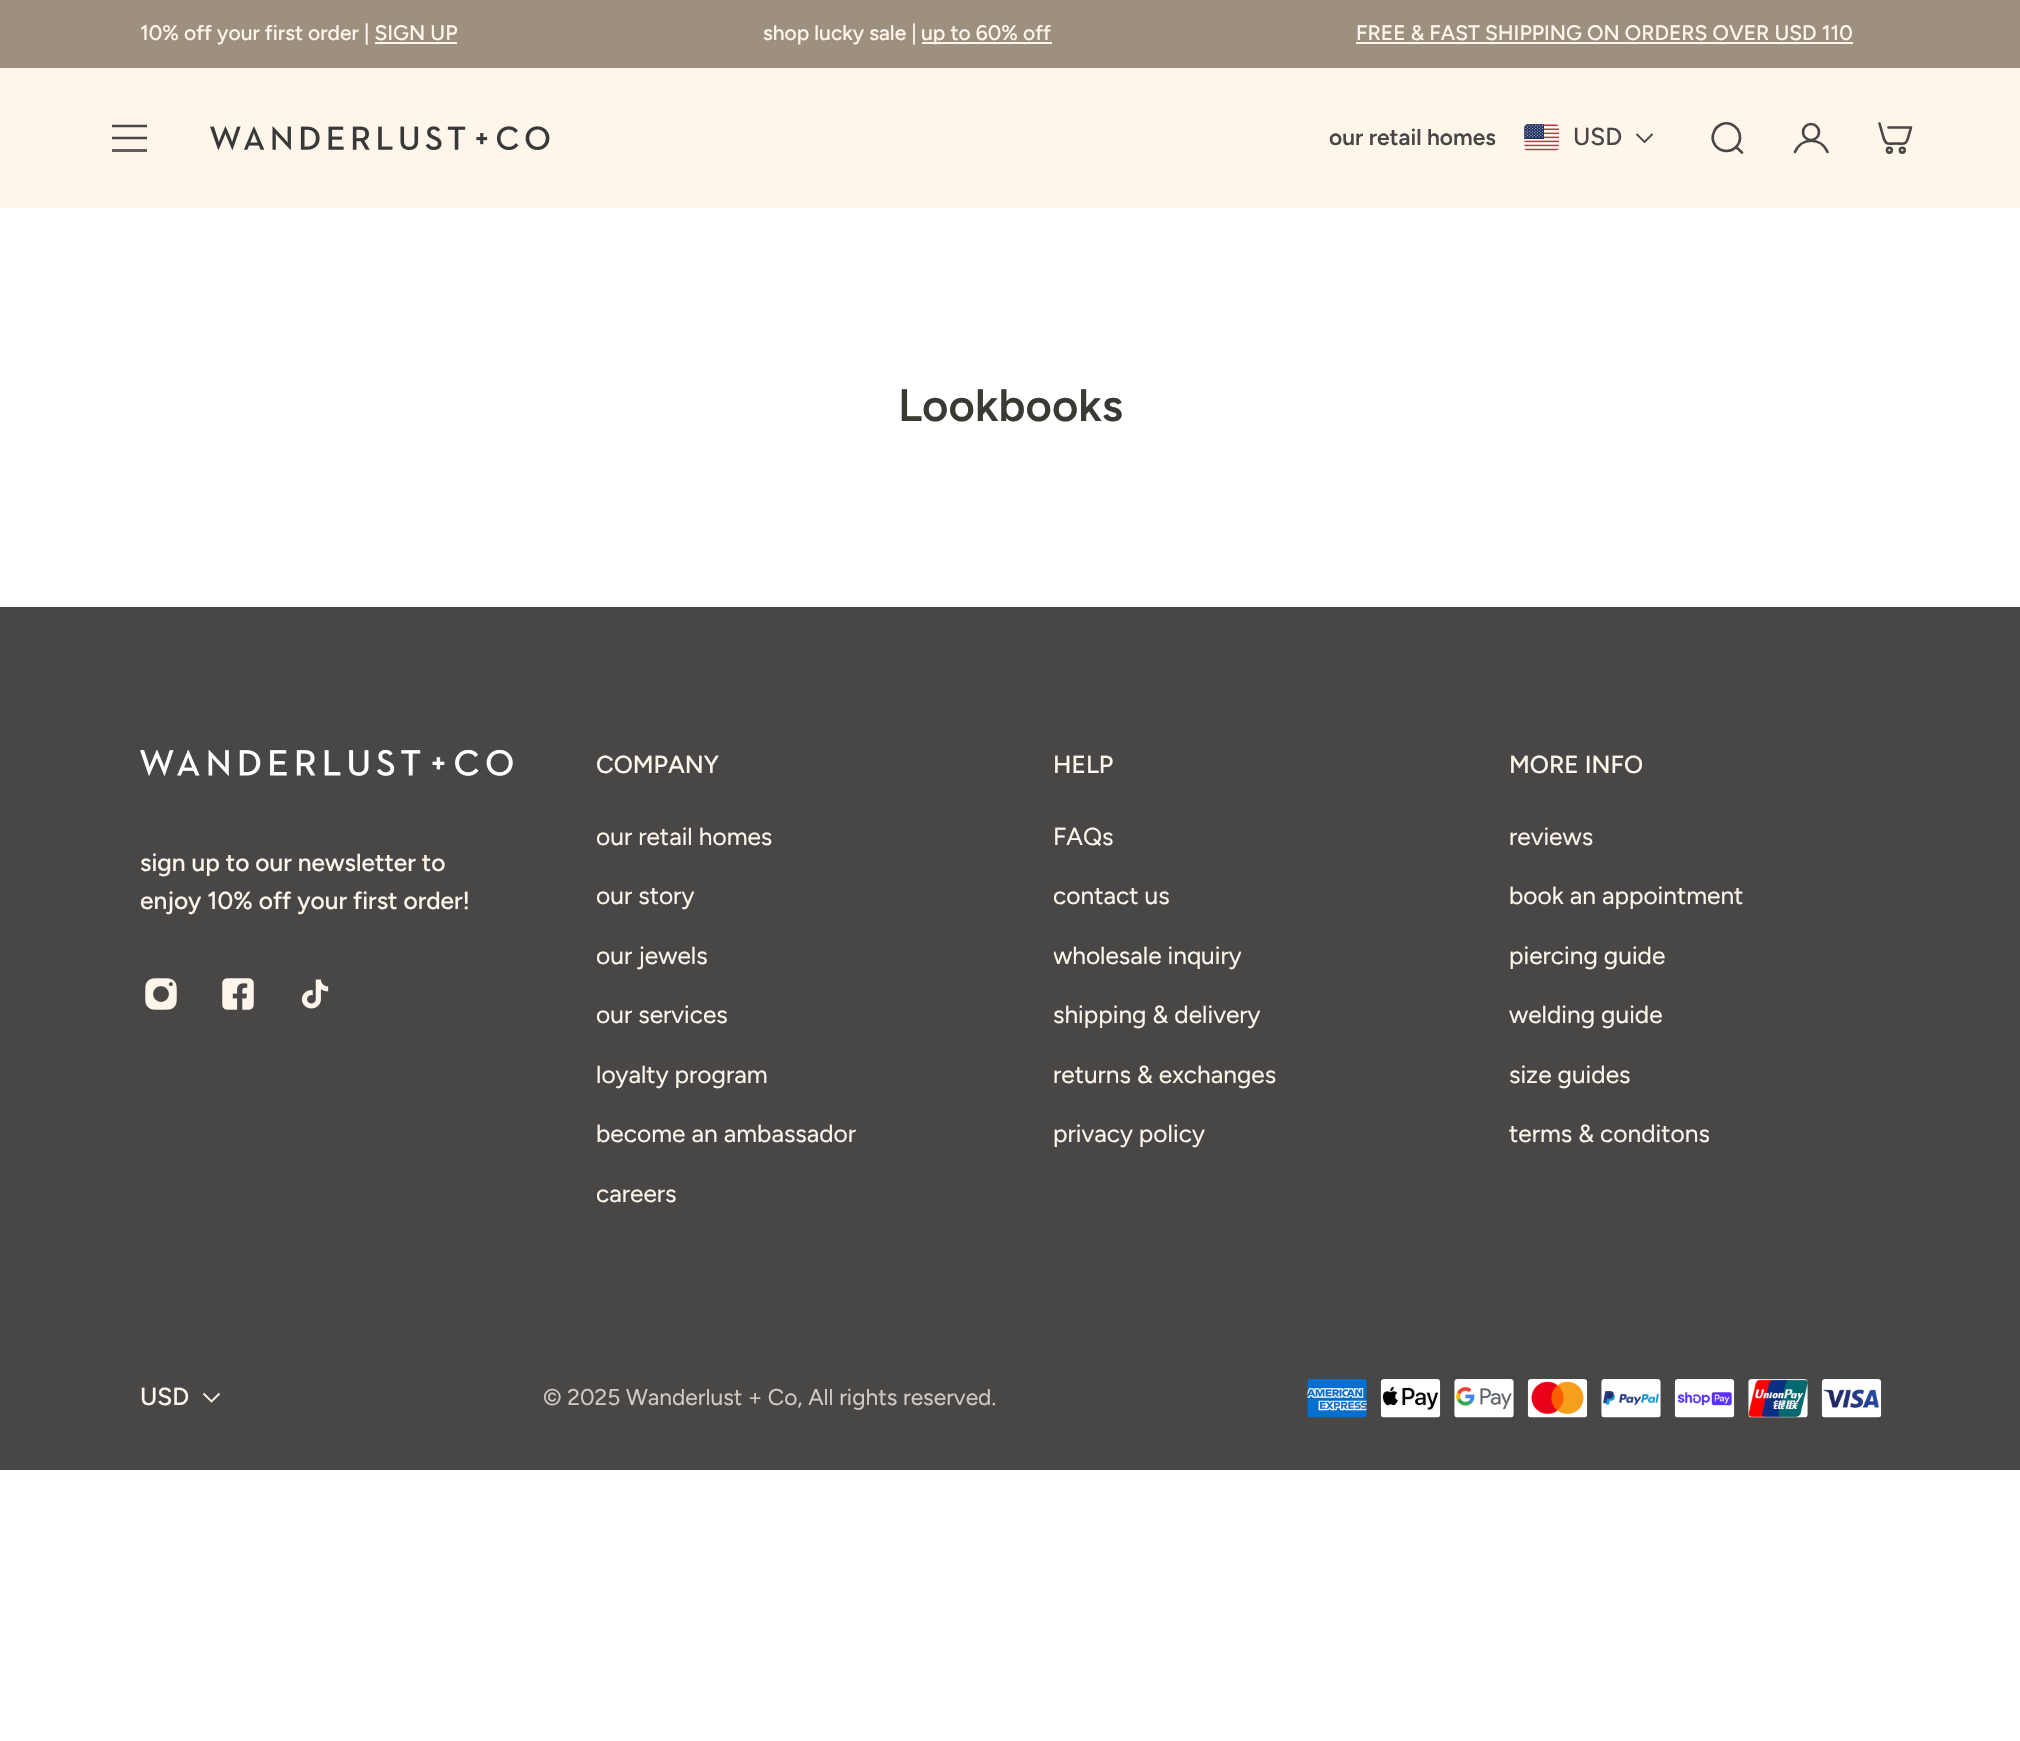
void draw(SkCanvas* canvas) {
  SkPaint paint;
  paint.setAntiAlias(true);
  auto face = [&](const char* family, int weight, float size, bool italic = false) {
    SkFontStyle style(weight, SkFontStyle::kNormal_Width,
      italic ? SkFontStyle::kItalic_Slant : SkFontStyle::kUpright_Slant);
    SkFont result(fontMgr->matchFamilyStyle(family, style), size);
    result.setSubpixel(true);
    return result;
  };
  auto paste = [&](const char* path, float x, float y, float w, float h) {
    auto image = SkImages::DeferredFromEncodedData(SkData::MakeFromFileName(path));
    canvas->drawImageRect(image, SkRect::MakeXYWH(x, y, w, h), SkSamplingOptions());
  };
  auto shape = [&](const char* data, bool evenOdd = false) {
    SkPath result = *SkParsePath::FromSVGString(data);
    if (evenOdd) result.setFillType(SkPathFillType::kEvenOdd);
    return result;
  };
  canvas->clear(0xffffffff);
  {
    const struct { float x, y, w, h; SkColor color; } items[] = {
      {0, 0, 2020, 68, 0xff9e907f},
      {375, 42, 82, 2, 0xfffef5eb},
      {922, 42, 130, 2, 0xfffef5eb},
      {1356, 42, 497, 2, 0xfffef5eb},
      {0, 68, 2020, 140, 0xfffef5eb},
    };
    for (auto [x, y, w, h, color] : items) {
      paint.setColor(color);
      canvas->drawRect(SkRect::MakeXYWH(x, y, w, h), paint);
    }
  }
  paint.setStroke(true);
  paint.setStrokeWidth(2.6f);
  paint.setColor(0xff494746);
  canvas->drawPath(shape("M112 126H147M112 138H147"), paint);
  paint.setStroke(false);
  paint.setColor(0xff615e5c);
  canvas->drawRect(SkRect::MakeXYWH(112, 149, 35, 3), paint);
  paste("img/1.png", 210, 126, 340, 25);
  paste("img/2.png", 1524, 124, 35, 27);
  paint.setStroke(true);
  paint.setStrokeWidth(1.8f);
  paint.setColor(0xff494746);
  canvas->drawPath(shape("M1652.5 134L1644.5 142L1636.5 134"), paint);
  paint.setStrokeWidth(2.6f);
  paint.setStrokeCap(SkPaint::kRound_Cap);
  paint.setStrokeJoin(SkPaint::kRound_Join);
  canvas->drawPath(shape("M1742 152.5L1736 147M1736 147C1746.5 136.5 1735 118.5 1721 124.5C1718 126 1715 128.5 1714 132C1712 136 1712.5 141 1715 145C1720 152 1730 153 1736 147Z"), paint);
  paint.setStrokeCap(SkPaint::kButt_Cap);
  paint.setStrokeJoin(SkPaint::kMiter_Join);
  canvas->drawCircle(1811, 132, 8, paint);
  paint.setStrokeCap(SkPaint::kRound_Cap);
  paint.setStrokeJoin(SkPaint::kRound_Join);
  canvas->drawPath(shape("M1795 152C1801.5 137 1821 137 1827.5 152"), paint);
  canvas->drawPath(shape("M1879.5 123.5L1883.5 137.5C1886 145.5 1888 143.5 1896 143.5C1903 143.5 1906 145.5 1908 138L1911 127.5H1888.5"), paint);
  paint.setStrokeCap(SkPaint::kButt_Cap);
  paint.setStrokeJoin(SkPaint::kMiter_Join);
  canvas->drawCircle(1889.4f, 150.2f, 2.4f, paint);
  canvas->drawCircle(1902.3f, 150.2f, 2.4f, paint);
  paint.setStroke(false);
  canvas->drawRect(SkRect::MakeXYWH(0, 607, 2020, 863), paint);
  paste("img/3.png", 140, 750, 373, 26);
  paste("img/4.png", 145, 978, 32, 32);
  paste("img/5.png", 222, 978, 32, 32);
  paste("img/6.png", 301, 979, 28, 30);
  paint.setStroke(true);
  paint.setStrokeWidth(1.8f);
  paint.setColor(0xfffef5eb);
  canvas->drawPath(shape("M219.5 1393.5L211.5 1401.5L203.5 1393.5"), paint);
  paste("img/7.png", 1307, 1379, 60, 39);
  paste("img/8.png", 1380, 1379, 61, 39);
  paste("img/9.png", 1454, 1379, 60, 39);
  paste("img/10.png", 1527, 1379, 61, 39);
  paste("img/11.png", 1601, 1379, 60, 39);
  paste("img/12.png", 1674, 1379, 61, 39);
  paste("img/13.png", 1748, 1379, 60, 39);
  paste("img/14.png", 1821, 1379, 61, 39);
  auto f0 = face("Figtree", 500, 21);
  paint.setStroke(false);
  {
    const struct { const char* s; float x, y; } items[] = {
      {"10% off your first order | SIGN UP", 140, 40},
      {"shop lucky sale |", 763, 40},
      {"up to 60% off", 921, 40},
      {"FREE & FAST SHIPPING ON ORDERS OVER USD 110", 1356, 40},
    };
    for (auto [s, x, y] : items) {
      canvas->drawString(s, x, y, f0, paint);
    }
  }
  auto f1 = face("Figtree", 600, 22.75f);
  paint.setColor(0xff494746);
  canvas->drawString("our retail homes", 1329, 145, f1, paint);
  auto f2 = face("Figtree", 500, 24.5f);
  canvas->drawString("USD", 1573, 145, f2, paint);
  auto f3 = face("Figtree", 600, 45.5f);
  paint.setColor(0xff3b3933);
  canvas->drawString("Lookbooks", 898, 421, f3, paint);
  paint.setColor(0xfffef5eb);
  {
    const struct { const char* s; float x, y; } items[] = {
      {"sign up to our newsletter to", 140, 871},
      {"enjoy 10% off your first order!", 140, 909},
      {"COMPANY", 596, 773},
    };
    for (auto [s, x, y] : items) {
      canvas->drawString(s, x, y, f2, paint);
    }
  }
  auto f4 = face("Figtree", 400, 24.5f);
  {
    const struct { const char* s; float x, y; } items[] = {
      {"our retail homes", 596, 845},
      {"our story", 596, 904},
      {"our jewels", 596, 964},
      {"our services", 596, 1023},
      {"loyalty program", 596, 1083},
      {"become an ambassador", 596, 1142},
      {"careers", 596, 1202},
    };
    for (auto [s, x, y] : items) {
      canvas->drawString(s, x, y, f4, paint);
    }
  }
  canvas->drawString("HELP", 1053, 773, f2, paint);
  canvas->drawString("FAQs", 1053, 845, f4, paint);
  canvas->save();
  canvas->clipRect(SkRect::MakeXYWH(1054, 879, 115, 38));
  canvas->drawString("contact us", 1053, 904, f4, paint);
  canvas->restore();
  canvas->save();
  canvas->clipRect(SkRect::MakeXYWH(1054, 938, 187, 39));
  canvas->drawString("wholesale inquiry", 1053, 964, f4, paint);
  canvas->restore();
  {
    const struct { const char* s; float x, y; } items[] = {
      {"shipping & delivery", 1053, 1023},
      {"returns & exchanges", 1053, 1083},
      {"privacy policy", 1053, 1142},
    };
    for (auto [s, x, y] : items) {
      canvas->drawString(s, x, y, f4, paint);
    }
  }
  canvas->drawString("MORE INFO", 1509, 773, f2, paint);
  {
    const struct { const char* s; float x, y; } items[] = {
      {"reviews", 1509, 845},
      {"book an appointment", 1509, 904},
      {"piercing guide", 1509, 964},
      {"welding guide", 1509, 1023},
      {"size guides", 1509, 1083},
      {"terms & conditons", 1509, 1142},
    };
    for (auto [s, x, y] : items) {
      canvas->drawString(s, x, y, f4, paint);
    }
  }
  canvas->drawString("USD", 140, 1405, f2, paint);
  auto f5 = face("Figtree", 400, 22.75f);
  paint.setColor(0xffd1cac2);
  canvas->drawString("© 2025 Wanderlust + Co, All rights reserved.", 543, 1405, f5, paint);
}
